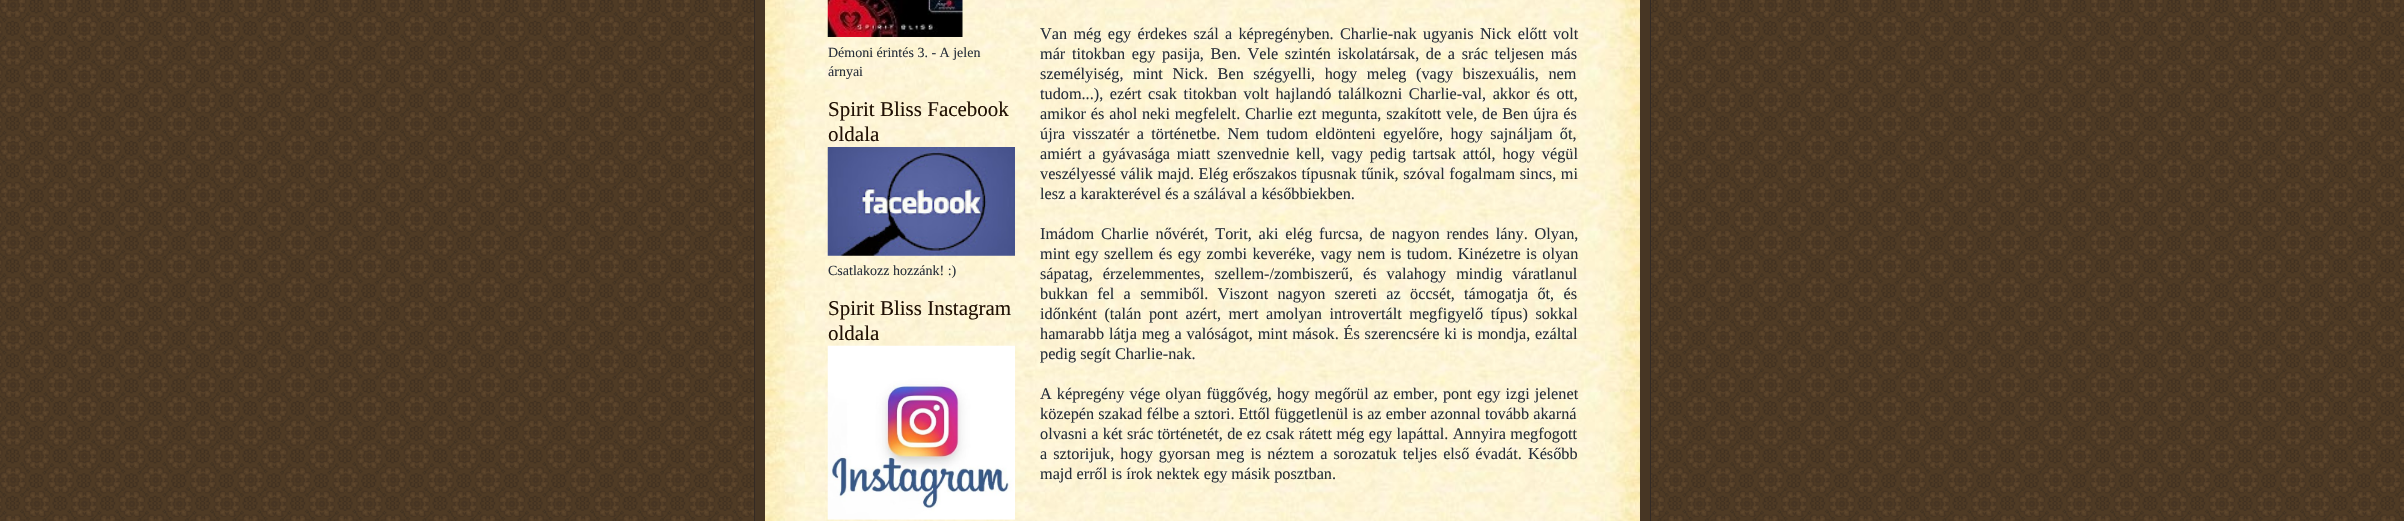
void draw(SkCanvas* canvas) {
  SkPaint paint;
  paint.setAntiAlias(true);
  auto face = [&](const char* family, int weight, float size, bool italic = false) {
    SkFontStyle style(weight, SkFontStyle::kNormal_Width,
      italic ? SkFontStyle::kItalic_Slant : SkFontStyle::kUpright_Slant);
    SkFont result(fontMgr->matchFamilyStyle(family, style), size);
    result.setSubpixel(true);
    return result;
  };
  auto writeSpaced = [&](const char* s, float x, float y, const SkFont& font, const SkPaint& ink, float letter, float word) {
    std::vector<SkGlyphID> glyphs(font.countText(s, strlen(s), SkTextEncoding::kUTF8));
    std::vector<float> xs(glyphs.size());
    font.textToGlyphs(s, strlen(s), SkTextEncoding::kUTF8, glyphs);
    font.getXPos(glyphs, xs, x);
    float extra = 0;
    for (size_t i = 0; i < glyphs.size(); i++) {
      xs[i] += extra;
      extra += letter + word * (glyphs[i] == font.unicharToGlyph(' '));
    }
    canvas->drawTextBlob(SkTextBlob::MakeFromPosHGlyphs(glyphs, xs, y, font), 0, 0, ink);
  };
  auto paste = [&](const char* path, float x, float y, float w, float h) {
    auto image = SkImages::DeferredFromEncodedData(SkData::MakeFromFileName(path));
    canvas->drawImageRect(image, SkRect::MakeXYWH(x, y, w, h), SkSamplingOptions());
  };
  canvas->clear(0xffffffff);
  paste("img/1.png", 0, 0, 2404, 521);
  {
    const struct { float x, y, w, h; SkColor color; } items[] = {
      {755, 0, 895, 521, 0xff473624},
      {1650, 0, 1, 521, 0xff332a24},
      {754, 0, 1, 521, 0xff332a24},
    };
    for (auto [x, y, w, h, color] : items) {
      paint.setColor(color);
      canvas->drawRect(SkRect::MakeXYWH(x, y, w, h), paint);
    }
  }
  paste("img/2.png", 765, 0, 875, 521);
  paste("img/3.png", 827, 0, 136, 37);
  paste("img/4.png", 827, 147, 188, 109);
  paste("img/5.png", 827, 345, 188, 175);
  auto f0 = face("Liberation Serif", 400, 14);
  paint.setColor(0xff29303b);
  canvas->drawString("Démoni érintés 3. - A jelen", 828, 57, f0, paint);
  canvas->drawString("árnyai", 828, 76, f0, paint);
  auto f1 = face("Liberation Serif", 400, 21);
  paint.setColor(0xff211104);
  canvas->drawString("Spirit Bliss Facebook", 828, 116, f1, paint);
  canvas->drawString("oldala", 828, 141, f1, paint);
  paint.setColor(0xff29303b);
  canvas->drawString("Csatlakozz hozzánk! :)", 828, 275, f0, paint);
  paint.setColor(0xff211104);
  canvas->drawString("Spirit Bliss Instagram", 828, 315, f1, paint);
  canvas->drawString("oldala", 828, 340, f1, paint);
  auto f2 = face("Liberation Serif", 400, 16.25f);
  paint.setColor(0xff29303b);
  writeSpaced("Van még egy érdekes szál a képregényben. Charlie-nak ugyanis Nick előtt volt", 1040, 39, f2, paint, 0, 2.25f);
  writeSpaced("már titokban egy pasija, Ben. Vele szintén iskolatársak, de a srác teljesen más", 1040, 59, f2, paint, 0, 2.6f);
  writeSpaced("személyiség, mint Nick. Ben szégyelli, hogy meleg (vagy biszexuális, nem", 1040, 79, f2, paint, 0, 5.5f);
  writeSpaced("tudom...), ezért csak titokban volt hajlandó találkozni Charlie-val, akkor és ott,", 1040, 99, f2, paint, 0, 2.6f);
  writeSpaced("amikor és ahol neki megfelelt. Charlie ezt megunta, szakított vele, de Ben újra és", 1040, 119, f2, paint, 0, 0.75f);
  writeSpaced("újra visszatér a történetbe. Nem tudom eldönteni egyelőre, hogy sajnáljam őt,", 1040, 139, f2, paint, 0, 3.25f);
  writeSpaced("amiért a gyávasága miatt szenvednie kell, vagy pedig tartsak attól, hogy végül", 1040, 159, f2, paint, 0, 2.75f);
  writeSpaced("veszélyessé válik majd. Elég erőszakos típusnak tűnik, szóval fogalmam sincs, mi", 1040, 179, f2, paint, 0, 0.5f);
  canvas->drawString("lesz a karakterével és a szálával a későbbiekben.", 1040, 199, f2, paint);
  writeSpaced("Imádom Charlie nővérét, Torit, aki elég furcsa, de nagyon rendes lány. Olyan,", 1040, 239, f2, paint, 0, 2.75f);
  writeSpaced("mint egy szellem és egy zombi keveréke, vagy nem is tudom. Kinézetre is olyan", 1040, 259, f2, paint, 0, 1.25f);
  writeSpaced("sápatag, érzelemmentes, szellem-/zombiszerű, és valahogy mindig váratlanul", 1040, 279, f2, paint, 0, 6);
  writeSpaced("bukkan fel a semmiből. Viszont nagyon szereti az öccsét, támogatja őt, és", 1040, 299, f2, paint, 0, 5.25f);
  writeSpaced("időnként (talán pont azért, mert amolyan introvertált megfigyelő típus) sokkal", 1040, 319, f2, paint, 0, 3.5f);
  writeSpaced("hamarabb látja meg a valóságot, mint mások. És szerencsére ki is mondja, ezáltal", 1040, 339, f2, paint, 0, 0.75f);
  canvas->drawString("pedig segít Charlie-nak.", 1040, 359, f2, paint);
  writeSpaced("A képregény vége olyan függővég, hogy megőrül az ember, pont egy izgi jelenet", 1040, 399, f2, paint, 0, 1);
  canvas->drawString("közepén szakad félbe a sztori. Ettől függetlenül is az ember azonnal tovább akarná", 1040, 419, f2, paint);
  writeSpaced("olvasni a két srác történetét, de ez csak rátett még egy lapáttal. Annyira megfogott", 1040, 439, f2, paint, 0, 0.25f);
  writeSpaced("a sztorijuk, hogy gyorsan meg is néztem a sorozatuk teljes első évadát. Később", 1040, 459, f2, paint, 0, 2);
  canvas->drawString("majd erről is írok nektek egy másik posztban.", 1040, 479, f2, paint);
}
